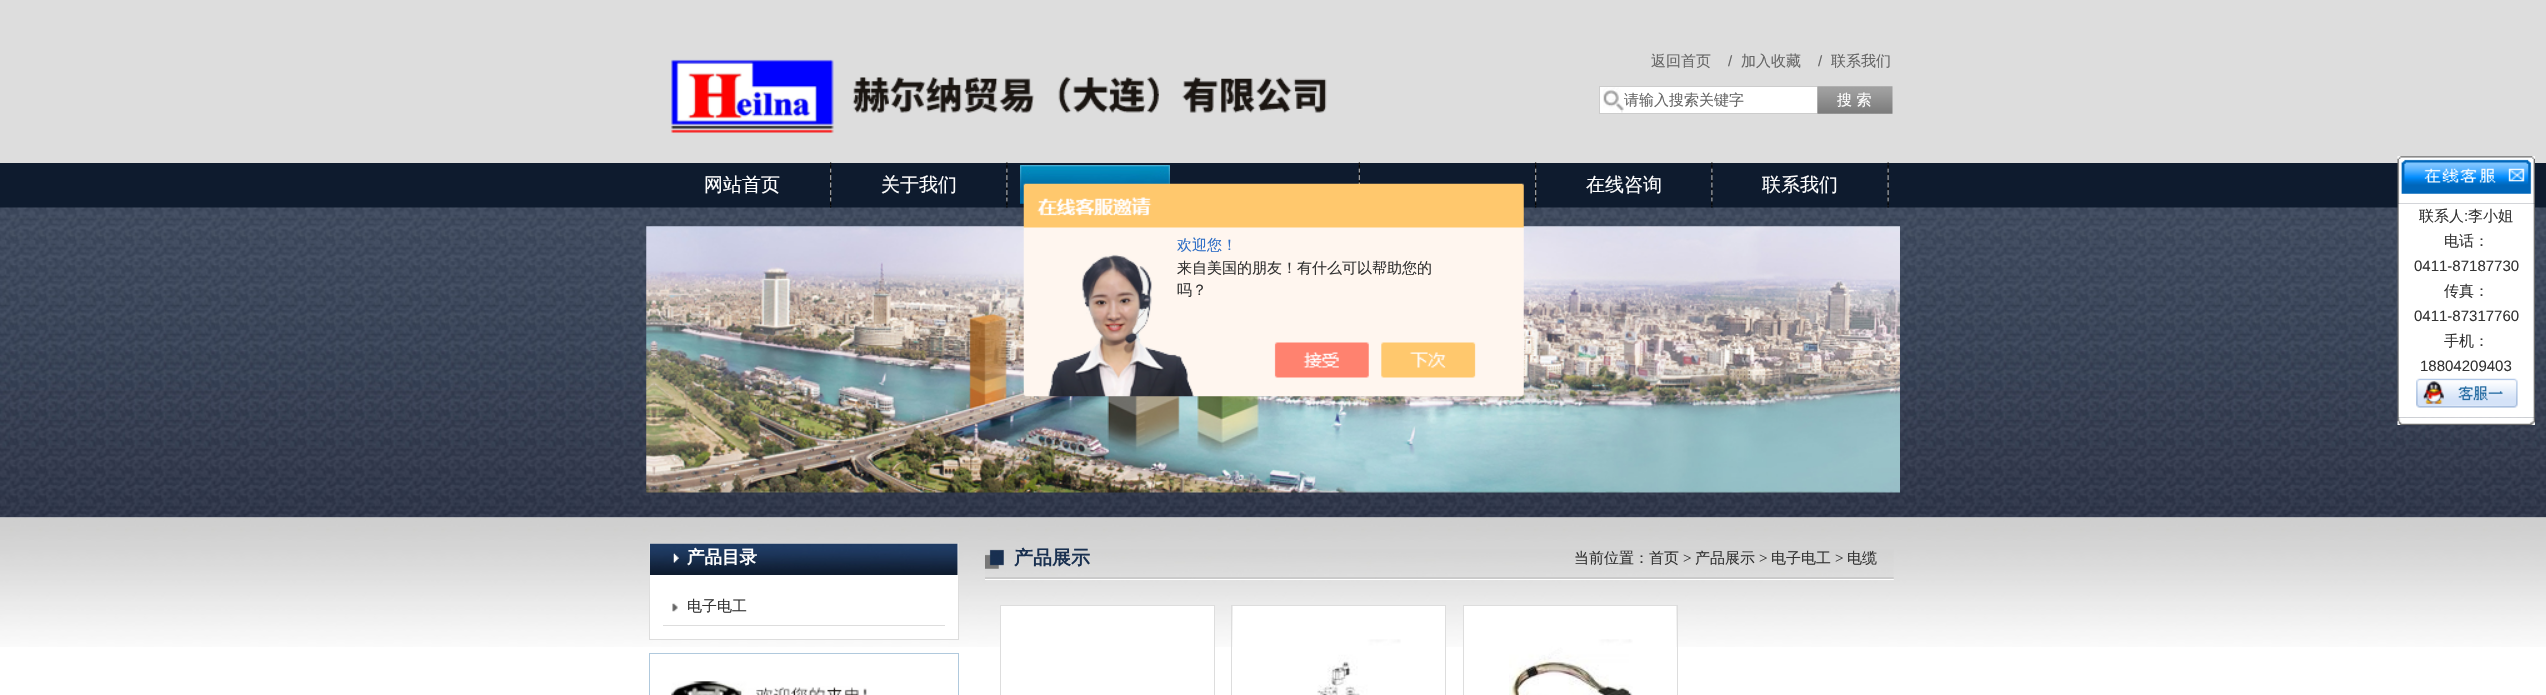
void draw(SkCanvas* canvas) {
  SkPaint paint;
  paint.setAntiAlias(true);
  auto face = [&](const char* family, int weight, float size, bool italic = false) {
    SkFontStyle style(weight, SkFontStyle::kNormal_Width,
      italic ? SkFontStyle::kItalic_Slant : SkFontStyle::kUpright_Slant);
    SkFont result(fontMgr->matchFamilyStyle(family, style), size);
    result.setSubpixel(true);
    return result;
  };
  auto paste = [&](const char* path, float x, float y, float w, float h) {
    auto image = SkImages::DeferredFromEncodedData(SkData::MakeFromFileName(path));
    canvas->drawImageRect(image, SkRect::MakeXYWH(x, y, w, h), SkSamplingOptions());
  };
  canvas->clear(0xffffffff);
  paint.setColor(0xffdddddd);
  canvas->drawRect(SkRect::MakeXYWH(0, 0, 2546, 163), paint);
  paste("img/1.png", 671, 59, 656, 74);
  paint.setColor(0xffffffff);
  canvas->drawRect(SkRect::MakeXYWH(1600, 87, 217, 26), paint);
  paste("img/2.png", 1603, 87, 21, 26);
  paint.setStroke(true);
  paint.setStrokeWidth(1);
  paint.setColor(0xffcccccc);
  canvas->drawRect(SkRect::MakeXYWH(1599.5f, 86.5f, 218, 27), paint);
  paste("img/3.png", 1817, 86, 76, 28);
  paint.setStroke(false);
  paint.setColor(0xff0e1b2e);
  canvas->drawRect(SkRect::MakeXYWH(0, 163, 2546, 45), paint);
  paste("img/11.png", 0, 207, 2546, 311);
  paste("img/4.png", 830, 162, 2, 46);
  paste("img/5.png", 1006, 162, 2, 46);
  paste("img/6.png", 1020, 165, 150, 39);
  paste("img/7.png", 1358, 162, 2, 22);
  paste("img/8.png", 1535, 162, 2, 46);
  paste("img/9.png", 1711, 162, 2, 46);
  paste("img/10.png", 1887, 162, 2, 46);
  paste("img/12.png", 646, 226, 1254, 267);
  paste("img/13.png", 1023, 183, 501, 214);
  paste("img/15.png", 2397, 203, 138, 215);
  paste("img/14.png", 2397, 156, 138, 48);
  paste("img/16.png", 2416, 378, 102, 30);
  paste("img/17.png", 2397, 417, 138, 8);
  paste("img/18.png", 0, 517, 2546, 130);
  paint.setColor(0xffffffff);
  canvas->drawRect(SkRect::MakeXYWH(649.5f, 543.5f, 309, 96), paint);
  paint.setStroke(true);
  paint.setColor(0xffdddddd);
  canvas->drawRect(SkRect::MakeXYWH(649.5f, 543.5f, 309, 96), paint);
  paste("img/19.png", 650, 543, 308, 32);
  paint.setStroke(false);
  canvas->drawRect(SkRect::MakeXYWH(663, 625, 282, 1), paint);
  paste("img/20.png", 672, 603, 6, 9);
  paint.setStroke(true);
  paint.setColor(0xffb0c9dd);
  canvas->drawRect(SkRect::MakeXYWH(649.5f, 653.5f, 309, 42), paint);
  paste("img/21.png", 671, 681, 196, 14);
  paste("img/22.png", 985, 549, 909, 31);
  paint.setColor(0xffdddddd);
  canvas->drawRect(SkRect::MakeXYWH(1000.5f, 605.5f, 214, 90), paint);
  paint.setStroke(false);
  paint.setColor(0xffffffff);
  canvas->drawRect(SkRect::MakeXYWH(1001, 606, 213, 41), paint);
  paint.setStroke(true);
  paint.setColor(0xffdddddd);
  canvas->drawRect(SkRect::MakeXYWH(1231.5f, 605.5f, 214, 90), paint);
  paint.setStroke(false);
  paint.setColor(0xffffffff);
  canvas->drawRect(SkRect::MakeXYWH(1233, 606, 212, 41), paint);
  paste("img/23.png", 1317, 639, 84, 56);
  paint.setStroke(true);
  paint.setColor(0xffdddddd);
  canvas->drawRect(SkRect::MakeXYWH(1463.5f, 605.5f, 214, 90), paint);
  paint.setStroke(false);
  paint.setColor(0xffffffff);
  canvas->drawRect(SkRect::MakeXYWH(1464, 606, 212, 41), paint);
  paste("img/24.png", 1509, 639, 124, 56);
  auto f0 = face("WenQuanYi Zen Hei", 500, 15);
  paint.setColor(0xff666666);
  canvas->drawString("返回首页", 1651, 66, f0, paint);
  auto f1 = face("Liberation Sans", 400, 15);
  canvas->drawString("/", 1728, 66, f1, paint);
  canvas->drawString("加入收藏", 1741, 66, f0, paint);
  canvas->drawString("/", 1818, 66, f1, paint);
  canvas->drawString("联系我们", 1831, 66, f0, paint);
  canvas->drawString("请输入搜索关键字", 1624, 105, f0, paint);
  paint.setColor(0xffffffff);
  canvas->drawString("搜 索", 1837, 105, f0, paint);
  auto f2 = face("WenQuanYi Zen Hei", 500, 19);
  {
    const struct { const char* s; float x, y; } items[] = {
      {"网站首页", 704, 191},
      {"关于我们", 881, 191},
      {"在线咨询", 1586, 191},
      {"联系我们", 1762, 191},
    };
    for (auto [s, x, y] : items) {
      canvas->drawString(s, x, y, f2, paint);
    }
  }
  paint.setColor(0xff2e6ec6);
  canvas->drawString("欢迎您！", 1177, 250, f0, paint);
  paint.setColor(0xff333333);
  {
    const struct { const char* s; float x, y; } items[] = {
      {"来自美国的朋友！有什么可以帮助您的", 1177, 273},
      {"吗？", 1177, 295},
      {"联系人", 2419, 221},
    };
    for (auto [s, x, y] : items) {
      canvas->drawString(s, x, y, f0, paint);
    }
  }
  canvas->drawString(":", 2464, 221, f1, paint);
  canvas->drawString("李小姐", 2468, 221, f0, paint);
  canvas->drawString("电话：", 2444, 246, f0, paint);
  canvas->drawString("0411-87187730", 2414, 271, f1, paint);
  canvas->drawString("传真：", 2444, 296, f0, paint);
  canvas->drawString("0411-87317760", 2414, 321, f1, paint);
  canvas->drawString("手机：", 2444, 346, f0, paint);
  canvas->drawString("18804209403", 2420, 371, f1, paint);
  auto f3 = face("WenQuanYi Zen Hei", 700, 17.5f);
  paint.setColor(0xffffffff);
  canvas->drawString("产品目录", 687, 563, f3, paint);
  paint.setColor(0xff333333);
  canvas->drawString("电子电工", 687, 611, f0, paint);
  auto f4 = face("WenQuanYi Zen Hei", 700, 19);
  paint.setColor(0xff193050);
  canvas->drawString("产品展示", 1014, 564, f4, paint);
  paint.setColor(0xff333333);
  canvas->drawString("当前位置：首页", 1574, 563, f0, paint);
  auto f5 = face("Liberation Serif", 400, 15);
  canvas->drawString(">", 1683, 563, f5, paint);
  canvas->drawString("产品展示", 1695, 563, f0, paint);
  canvas->drawString(">", 1759, 563, f5, paint);
  canvas->drawString("电子电工", 1771, 563, f0, paint);
  canvas->drawString(">", 1835, 563, f5, paint);
  canvas->drawString("电缆", 1847, 563, f0, paint);
}
